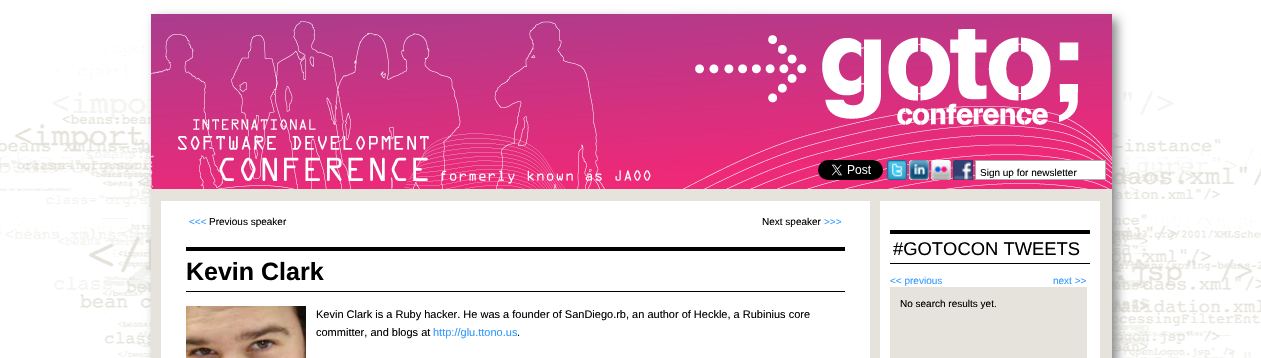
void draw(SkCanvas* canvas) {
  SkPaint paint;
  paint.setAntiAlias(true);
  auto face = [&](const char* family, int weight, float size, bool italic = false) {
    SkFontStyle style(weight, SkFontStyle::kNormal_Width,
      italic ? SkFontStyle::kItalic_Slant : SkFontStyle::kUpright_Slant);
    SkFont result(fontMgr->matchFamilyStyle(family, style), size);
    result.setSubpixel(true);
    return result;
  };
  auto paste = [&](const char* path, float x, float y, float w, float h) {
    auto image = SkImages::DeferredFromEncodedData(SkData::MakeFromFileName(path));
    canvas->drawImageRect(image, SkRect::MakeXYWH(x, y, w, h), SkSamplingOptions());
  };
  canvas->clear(0xffffffff);
  paste("img/1.png", 0, 45, 1261, 313);
  paint.setColor(0xff888888);
  paint.setMaskFilter(SkMaskFilter::MakeBlur(kNormal_SkBlurStyle, 5));
  canvas->drawRect(SkRect::MakeXYWH(156, 19, 961, 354), paint);
  paint.setMaskFilter(nullptr);
  paint.setColor(0xffe6e3dc);
  canvas->drawRect(SkRect::MakeXYWH(151, 189, 961, 169), paint);
  paste("img/2.png", 151, 14, 961, 175);
  paste("img/3.png", 818, 160, 65, 20);
  paste("img/4.png", 887, 160, 20, 20);
  paste("img/5.png", 909, 160, 20, 20);
  paste("img/6.png", 931, 160, 20, 20);
  paste("img/7.png", 953, 160, 20, 20);
  paint.setColor(0xffffffff);
  canvas->drawRect(SkRect::MakeXYWH(975.5f, 160.5f, 130, 19), paint);
  paint.setStroke(true);
  paint.setStrokeWidth(1);
  paint.setColor(0xffaaaaaa);
  canvas->drawRect(SkRect::MakeXYWH(975.5f, 160.5f, 130, 19), paint);
  paint.setStroke(false);
  {
    const struct { float x, y, w, h; SkColor color; } items[] = {
      {161, 201, 709, 157, 0xffffffff},
      {186, 247, 659, 4, 0xff000000},
      {186, 291, 659, 1, 0xff000000},
    };
    for (auto [x, y, w, h, color] : items) {
      paint.setColor(color);
      canvas->drawRect(SkRect::MakeXYWH(x, y, w, h), paint);
    }
  }
  paste("img/8.png", 186, 306, 120, 52);
  {
    const struct { float x, y, w, h; SkColor color; } items[] = {
      {880, 201, 220, 157, 0xffffffff},
      {890, 230, 200, 4, 0xff000000},
      {890, 263, 200, 1, 0xff000000},
      {890, 287, 197, 71, 0xffe5e3dc},
    };
    for (auto [x, y, w, h, color] : items) {
      paint.setColor(color);
      canvas->drawRect(SkRect::MakeXYWH(x, y, w, h), paint);
    }
  }
  auto f0 = face("Liberation Sans", 400, 10);
  paint.setColor(0xff000000);
  canvas->drawString("Sign up for newsletter", 980, 176, f0, paint);
  paint.setColor(0xff3399ff);
  canvas->drawString("<<<", 189, 225, f0, paint);
  paint.setColor(0xff000000);
  canvas->drawString("Previous speaker", 209, 225, f0, paint);
  canvas->drawString("Next speaker", 762, 225, f0, paint);
  paint.setColor(0xff3399ff);
  canvas->drawString(">>>", 824, 225, f0, paint);
  auto f1 = face("Liberation Sans", 700, 25);
  paint.setColor(0xff000000);
  canvas->drawString("Kevin Clark", 186, 280, f1, paint);
  auto f2 = face("Liberation Sans", 400, 11);
  canvas->drawString("Kevin Clark is a Ruby hacker. He was a founder of SanDiego.rb, an author of Heckle, a Rubinius core", 316, 318, f2, paint);
  canvas->drawString("committer, and blogs at", 316, 336, f2, paint);
  paint.setColor(0xff3399ff);
  canvas->drawString("http://glu.ttono.us", 433, 336, f2, paint);
  paint.setColor(0xff000000);
  canvas->drawString(".", 517, 336, f2, paint);
  auto f3 = face("Liberation Sans", 400, 18.4f);
  canvas->drawString("#GOTOCON TWEETS", 893, 255, f3, paint);
  paint.setColor(0xff3399ff);
  canvas->drawString("<< previous", 890, 284, f0, paint);
  canvas->drawString("next >>", 1053, 284, f0, paint);
  paint.setColor(0xff000000);
  canvas->drawString("No search results yet.", 900, 307, f0, paint);
}
